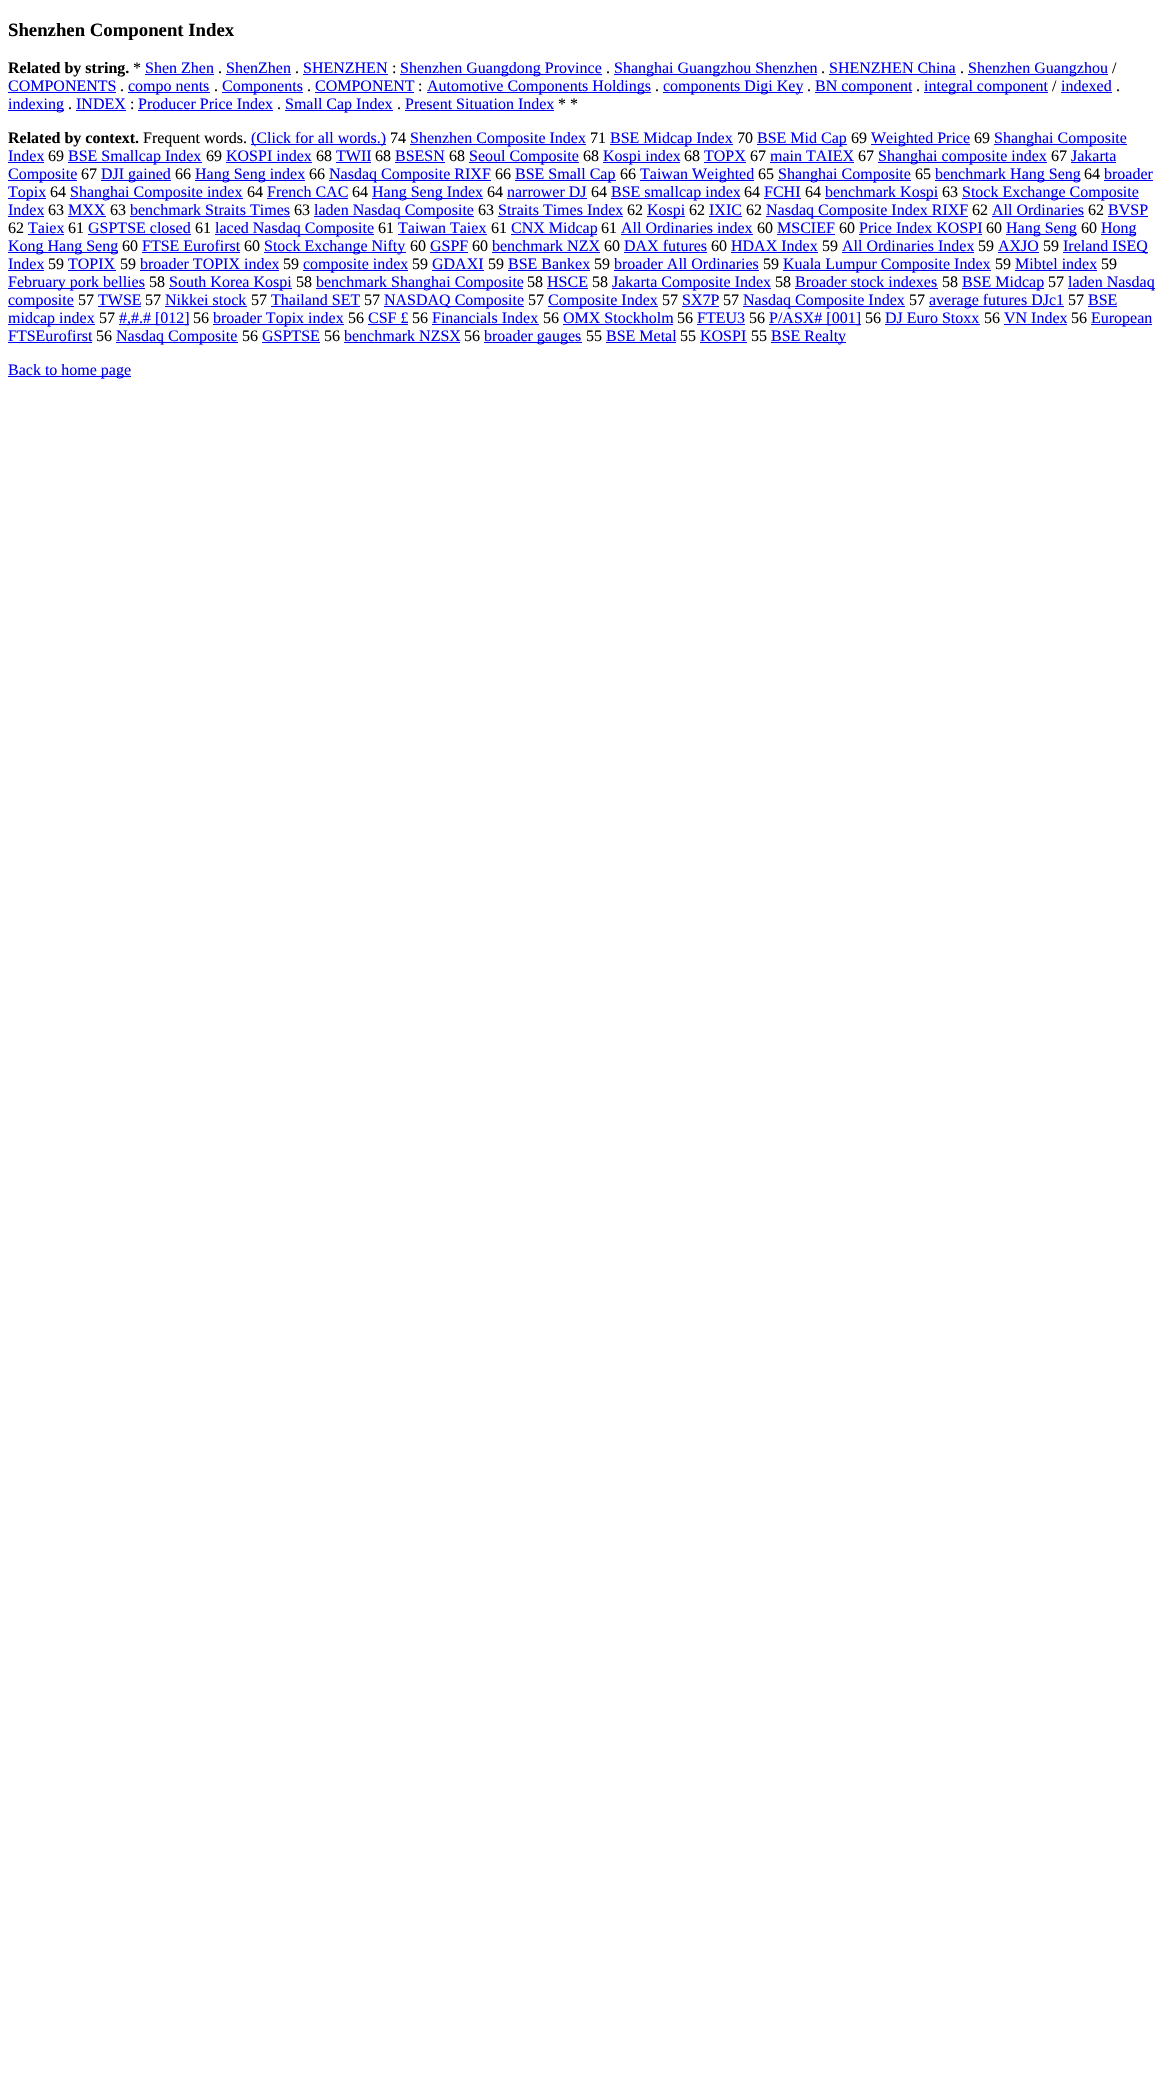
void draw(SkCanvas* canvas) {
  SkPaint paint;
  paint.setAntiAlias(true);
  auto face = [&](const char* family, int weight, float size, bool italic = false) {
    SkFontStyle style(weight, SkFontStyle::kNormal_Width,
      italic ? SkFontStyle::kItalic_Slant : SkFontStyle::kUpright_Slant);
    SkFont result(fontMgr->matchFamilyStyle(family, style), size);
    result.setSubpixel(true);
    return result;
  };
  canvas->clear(0xffffffff);
  {
    const struct { float x, y, w, h; SkColor color; } items[] = {
      {145, 74, 69, 1, 0xff0000ee},
      {226, 74, 65, 1, 0xff0000ee},
      {303, 74, 85, 1, 0xff0000ee},
      {400, 74, 202, 1, 0xff0000ee},
      {614, 74, 203, 1, 0xff0000ee},
      {829, 74, 127, 1, 0xff0000ee},
      {968, 74, 140, 1, 0xff0000ee},
      {8, 92, 108, 1, 0xff0000ee},
      {128, 92, 82, 1, 0xff0000ee},
      {222, 92, 81, 1, 0xff0000ee},
      {315, 92, 99, 1, 0xff0000ee},
      {427, 92, 224, 1, 0xff0000ee},
      {663, 92, 140, 1, 0xff0000ee},
      {815, 92, 97, 1, 0xff0000ee},
      {924, 92, 124, 1, 0xff0000ee},
      {1061, 92, 51, 1, 0xff0000ee},
      {8, 110, 56, 1, 0xff0000ee},
      {76, 110, 50, 1, 0xff0000ee},
      {138, 110, 135, 1, 0xff0000ee},
      {285, 110, 108, 1, 0xff0000ee},
      {405, 110, 149, 1, 0xff0000ee},
      {251, 144, 135, 1, 0xff0000ee},
      {410, 144, 176, 1, 0xff0000ee},
      {610, 144, 123, 1, 0xff0000ee},
      {757, 144, 90, 1, 0xff0000ee},
      {871, 144, 99, 1, 0xff0000ee},
      {994, 144, 133, 1, 0xff0000ee},
      {8, 162, 36, 1, 0xff0000ee},
      {68, 162, 134, 1, 0xff0000ee},
      {226, 162, 86, 1, 0xff0000ee},
      {336, 162, 35, 1, 0xff0000ee},
      {395, 162, 50, 1, 0xff0000ee},
      {469, 162, 110, 1, 0xff0000ee},
      {603, 162, 77, 1, 0xff0000ee},
      {704, 162, 42, 1, 0xff0000ee},
      {770, 162, 84, 1, 0xff0000ee},
      {878, 162, 169, 1, 0xff0000ee},
      {1071, 162, 45, 1, 0xff0000ee},
      {8, 180, 69, 1, 0xff0000ee},
      {101, 180, 70, 1, 0xff0000ee},
      {195, 180, 110, 1, 0xff0000ee},
      {329, 180, 162, 1, 0xff0000ee},
      {515, 180, 101, 1, 0xff0000ee},
      {640, 180, 114, 1, 0xff0000ee},
      {778, 180, 133, 1, 0xff0000ee},
      {935, 180, 145, 1, 0xff0000ee},
      {1104, 180, 49, 1, 0xff0000ee},
      {8, 198, 38, 1, 0xff0000ee},
      {70, 198, 173, 1, 0xff0000ee},
      {267, 198, 81, 1, 0xff0000ee},
      {372, 198, 111, 1, 0xff0000ee},
      {507, 198, 80, 1, 0xff0000ee},
      {611, 198, 129, 1, 0xff0000ee},
      {764, 198, 37, 1, 0xff0000ee},
      {825, 198, 113, 1, 0xff0000ee},
      {962, 198, 177, 1, 0xff0000ee},
      {8, 216, 36, 1, 0xff0000ee},
      {68, 216, 38, 1, 0xff0000ee},
      {130, 216, 160, 1, 0xff0000ee},
      {314, 216, 160, 1, 0xff0000ee},
      {498, 216, 125, 1, 0xff0000ee},
      {647, 216, 38, 1, 0xff0000ee},
      {709, 216, 33, 1, 0xff0000ee},
      {766, 216, 202, 1, 0xff0000ee},
      {992, 216, 92, 1, 0xff0000ee},
      {1108, 216, 40, 1, 0xff0000ee},
      {28, 234, 36, 1, 0xff0000ee},
      {88, 234, 103, 1, 0xff0000ee},
      {215, 234, 159, 1, 0xff0000ee},
      {398, 234, 89, 1, 0xff0000ee},
      {511, 234, 86, 1, 0xff0000ee},
      {621, 234, 132, 1, 0xff0000ee},
      {777, 234, 58, 1, 0xff0000ee},
      {859, 234, 123, 1, 0xff0000ee},
      {1006, 234, 71, 1, 0xff0000ee},
      {1101, 234, 35, 1, 0xff0000ee},
      {8, 252, 110, 1, 0xff0000ee},
      {142, 252, 98, 1, 0xff0000ee},
      {264, 252, 142, 1, 0xff0000ee},
      {430, 252, 38, 1, 0xff0000ee},
      {492, 252, 108, 1, 0xff0000ee},
      {624, 252, 83, 1, 0xff0000ee},
      {731, 252, 87, 1, 0xff0000ee},
      {842, 252, 132, 1, 0xff0000ee},
      {998, 252, 41, 1, 0xff0000ee},
      {1063, 252, 85, 1, 0xff0000ee},
      {8, 270, 36, 1, 0xff0000ee},
      {68, 270, 48, 1, 0xff0000ee},
      {140, 270, 139, 1, 0xff0000ee},
      {303, 270, 105, 1, 0xff0000ee},
      {432, 270, 52, 1, 0xff0000ee},
      {508, 270, 82, 1, 0xff0000ee},
      {614, 270, 145, 1, 0xff0000ee},
      {783, 270, 208, 1, 0xff0000ee},
      {1015, 270, 82, 1, 0xff0000ee},
      {8, 288, 137, 1, 0xff0000ee},
      {169, 288, 123, 1, 0xff0000ee},
      {316, 288, 207, 1, 0xff0000ee},
      {547, 288, 41, 1, 0xff0000ee},
      {612, 288, 159, 1, 0xff0000ee},
      {795, 288, 143, 1, 0xff0000ee},
      {962, 288, 82, 1, 0xff0000ee},
      {1068, 288, 87, 1, 0xff0000ee},
      {8, 306, 66, 1, 0xff0000ee},
      {98, 306, 43, 1, 0xff0000ee},
      {165, 306, 82, 1, 0xff0000ee},
      {271, 306, 89, 1, 0xff0000ee},
      {384, 306, 140, 1, 0xff0000ee},
      {548, 306, 110, 1, 0xff0000ee},
      {682, 306, 37, 1, 0xff0000ee},
      {743, 306, 162, 1, 0xff0000ee},
      {929, 306, 135, 1, 0xff0000ee},
      {1088, 306, 29, 1, 0xff0000ee},
      {8, 324, 87, 1, 0xff0000ee},
      {119, 324, 70, 1, 0xff0000ee},
      {213, 324, 131, 1, 0xff0000ee},
      {368, 324, 40, 1, 0xff0000ee},
      {432, 324, 107, 1, 0xff0000ee},
      {563, 324, 110, 1, 0xff0000ee},
      {697, 324, 48, 1, 0xff0000ee},
      {769, 324, 92, 1, 0xff0000ee},
      {885, 324, 95, 1, 0xff0000ee},
      {1004, 324, 63, 1, 0xff0000ee},
      {1091, 324, 61, 1, 0xff0000ee},
      {8, 342, 84, 1, 0xff0000ee},
      {116, 342, 122, 1, 0xff0000ee},
      {262, 342, 58, 1, 0xff0000ee},
      {344, 342, 116, 1, 0xff0000ee},
      {484, 342, 98, 1, 0xff0000ee},
      {606, 342, 70, 1, 0xff0000ee},
      {700, 342, 47, 1, 0xff0000ee},
      {771, 342, 75, 1, 0xff0000ee},
      {8, 376, 123, 1, 0xff0000ee},
    };
    for (auto [x, y, w, h, color] : items) {
      paint.setColor(color);
      canvas->drawRect(SkRect::MakeXYWH(x, y, w, h), paint);
    }
  }
  auto f0 = face("Liberation Serif", 700, 18.75f);
  paint.setColor(0xff000000);
  canvas->drawString("Shenzhen Component Index", 8, 36, f0, paint);
  auto f1 = face("Liberation Serif", 700, 16);
  canvas->drawString("Related by string.", 8, 73, f1, paint);
  auto f2 = face("Liberation Serif", 400, 16);
  canvas->drawString("*", 133, 73, f2, paint);
  paint.setColor(0xff0000ee);
  canvas->drawString("Shen Zhen", 145, 73, f2, paint);
  paint.setColor(0xff000000);
  canvas->drawString(".", 218, 73, f2, paint);
  paint.setColor(0xff0000ee);
  canvas->drawString("ShenZhen", 226, 73, f2, paint);
  paint.setColor(0xff000000);
  canvas->drawString(".", 295, 73, f2, paint);
  paint.setColor(0xff0000ee);
  canvas->drawString("SHENZHEN", 303, 73, f2, paint);
  paint.setColor(0xff000000);
  canvas->drawString(":", 392, 73, f2, paint);
  paint.setColor(0xff0000ee);
  canvas->drawString("Shenzhen Guangdong Province", 400, 73, f2, paint);
  paint.setColor(0xff000000);
  canvas->drawString(".", 606, 73, f2, paint);
  paint.setColor(0xff0000ee);
  canvas->drawString("Shanghai Guangzhou Shenzhen", 614, 73, f2, paint);
  paint.setColor(0xff000000);
  canvas->drawString(".", 821, 73, f2, paint);
  paint.setColor(0xff0000ee);
  canvas->drawString("SHENZHEN China", 829, 73, f2, paint);
  paint.setColor(0xff000000);
  canvas->drawString(".", 960, 73, f2, paint);
  paint.setColor(0xff0000ee);
  canvas->drawString("Shenzhen Guangzhou", 968, 73, f2, paint);
  paint.setColor(0xff000000);
  canvas->drawString("/", 1112, 73, f2, paint);
  paint.setColor(0xff0000ee);
  canvas->drawString("COMPONENTS", 8, 91, f2, paint);
  paint.setColor(0xff000000);
  canvas->drawString(".", 120, 91, f2, paint);
  paint.setColor(0xff0000ee);
  canvas->drawString("compo nents", 128, 91, f2, paint);
  paint.setColor(0xff000000);
  canvas->drawString(".", 214, 91, f2, paint);
  paint.setColor(0xff0000ee);
  canvas->drawString("Components", 222, 91, f2, paint);
  paint.setColor(0xff000000);
  canvas->drawString(".", 307, 91, f2, paint);
  paint.setColor(0xff0000ee);
  canvas->drawString("COMPONENT", 315, 91, f2, paint);
  paint.setColor(0xff000000);
  canvas->drawString(":", 418, 91, f2, paint);
  paint.setColor(0xff0000ee);
  canvas->drawString("Automotive Components Holdings", 427, 91, f2, paint);
  paint.setColor(0xff000000);
  canvas->drawString(".", 655, 91, f2, paint);
  paint.setColor(0xff0000ee);
  canvas->drawString("components Digi Key", 663, 91, f2, paint);
  paint.setColor(0xff000000);
  canvas->drawString(".", 807, 91, f2, paint);
  paint.setColor(0xff0000ee);
  canvas->drawString("BN component", 815, 91, f2, paint);
  paint.setColor(0xff000000);
  canvas->drawString(".", 916, 91, f2, paint);
  paint.setColor(0xff0000ee);
  canvas->drawString("integral component", 924, 91, f2, paint);
  paint.setColor(0xff000000);
  canvas->drawString("/", 1052, 91, f2, paint);
  paint.setColor(0xff0000ee);
  canvas->drawString("indexed", 1061, 91, f2, paint);
  paint.setColor(0xff000000);
  canvas->drawString(".", 1116, 91, f2, paint);
  paint.setColor(0xff0000ee);
  canvas->drawString("indexing", 8, 109, f2, paint);
  paint.setColor(0xff000000);
  canvas->drawString(".", 68, 109, f2, paint);
  paint.setColor(0xff0000ee);
  canvas->drawString("INDEX", 76, 109, f2, paint);
  paint.setColor(0xff000000);
  canvas->drawString(":", 130, 109, f2, paint);
  paint.setColor(0xff0000ee);
  canvas->drawString("Producer Price Index", 138, 109, f2, paint);
  paint.setColor(0xff000000);
  canvas->drawString(".", 277, 109, f2, paint);
  paint.setColor(0xff0000ee);
  canvas->drawString("Small Cap Index", 285, 109, f2, paint);
  paint.setColor(0xff000000);
  canvas->drawString(".", 397, 109, f2, paint);
  paint.setColor(0xff0000ee);
  canvas->drawString("Present Situation Index", 405, 109, f2, paint);
  paint.setColor(0xff000000);
  canvas->drawString("* *", 558, 109, f2, paint);
  canvas->drawString("Related by context.", 8, 143, f1, paint);
  canvas->drawString("Frequent words.", 143, 143, f2, paint);
  paint.setColor(0xff0000ee);
  canvas->drawString("(Click for all words.)", 251, 143, f2, paint);
  paint.setColor(0xff000000);
  canvas->drawString("74", 390, 143, f2, paint);
  paint.setColor(0xff0000ee);
  canvas->drawString("Shenzhen Composite Index", 410, 143, f2, paint);
  paint.setColor(0xff000000);
  canvas->drawString("71", 590, 143, f2, paint);
  paint.setColor(0xff0000ee);
  canvas->drawString("BSE Midcap Index", 610, 143, f2, paint);
  paint.setColor(0xff000000);
  canvas->drawString("70", 737, 143, f2, paint);
  paint.setColor(0xff0000ee);
  canvas->drawString("BSE Mid Cap", 757, 143, f2, paint);
  paint.setColor(0xff000000);
  canvas->drawString("69", 851, 143, f2, paint);
  paint.setColor(0xff0000ee);
  canvas->drawString("Weighted Price", 871, 143, f2, paint);
  paint.setColor(0xff000000);
  canvas->drawString("69", 974, 143, f2, paint);
  paint.setColor(0xff0000ee);
  canvas->drawString("Shanghai Composite", 994, 143, f2, paint);
  canvas->drawString("Index", 8, 161, f2, paint);
  paint.setColor(0xff000000);
  canvas->drawString("69", 48, 161, f2, paint);
  paint.setColor(0xff0000ee);
  canvas->drawString("BSE Smallcap Index", 68, 161, f2, paint);
  paint.setColor(0xff000000);
  canvas->drawString("69", 206, 161, f2, paint);
  paint.setColor(0xff0000ee);
  canvas->drawString("KOSPI index", 226, 161, f2, paint);
  paint.setColor(0xff000000);
  canvas->drawString("68", 316, 161, f2, paint);
  paint.setColor(0xff0000ee);
  canvas->drawString("TWII", 336, 161, f2, paint);
  paint.setColor(0xff000000);
  canvas->drawString("68", 375, 161, f2, paint);
  paint.setColor(0xff0000ee);
  canvas->drawString("BSESN", 395, 161, f2, paint);
  paint.setColor(0xff000000);
  canvas->drawString("68", 449, 161, f2, paint);
  paint.setColor(0xff0000ee);
  canvas->drawString("Seoul Composite", 469, 161, f2, paint);
  paint.setColor(0xff000000);
  canvas->drawString("68", 583, 161, f2, paint);
  paint.setColor(0xff0000ee);
  canvas->drawString("Kospi index", 603, 161, f2, paint);
  paint.setColor(0xff000000);
  canvas->drawString("68", 684, 161, f2, paint);
  paint.setColor(0xff0000ee);
  canvas->drawString("TOPX", 704, 161, f2, paint);
  paint.setColor(0xff000000);
  canvas->drawString("67", 750, 161, f2, paint);
  paint.setColor(0xff0000ee);
  canvas->drawString("main TAIEX", 770, 161, f2, paint);
  paint.setColor(0xff000000);
  canvas->drawString("67", 858, 161, f2, paint);
  paint.setColor(0xff0000ee);
  canvas->drawString("Shanghai composite index", 878, 161, f2, paint);
  paint.setColor(0xff000000);
  canvas->drawString("67", 1051, 161, f2, paint);
  paint.setColor(0xff0000ee);
  canvas->drawString("Jakarta", 1071, 161, f2, paint);
  canvas->drawString("Composite", 8, 179, f2, paint);
  paint.setColor(0xff000000);
  canvas->drawString("67", 81, 179, f2, paint);
  paint.setColor(0xff0000ee);
  canvas->drawString("DJI gained", 101, 179, f2, paint);
  paint.setColor(0xff000000);
  canvas->drawString("66", 175, 179, f2, paint);
  paint.setColor(0xff0000ee);
  canvas->drawString("Hang Seng index", 195, 179, f2, paint);
  paint.setColor(0xff000000);
  canvas->drawString("66", 309, 179, f2, paint);
  paint.setColor(0xff0000ee);
  canvas->drawString("Nasdaq Composite RIXF", 329, 179, f2, paint);
  paint.setColor(0xff000000);
  canvas->drawString("66", 495, 179, f2, paint);
  paint.setColor(0xff0000ee);
  canvas->drawString("BSE Small Cap", 515, 179, f2, paint);
  paint.setColor(0xff000000);
  canvas->drawString("66", 620, 179, f2, paint);
  paint.setColor(0xff0000ee);
  canvas->drawString("Taiwan Weighted", 640, 179, f2, paint);
  paint.setColor(0xff000000);
  canvas->drawString("65", 758, 179, f2, paint);
  paint.setColor(0xff0000ee);
  canvas->drawString("Shanghai Composite", 778, 179, f2, paint);
  paint.setColor(0xff000000);
  canvas->drawString("65", 915, 179, f2, paint);
  paint.setColor(0xff0000ee);
  canvas->drawString("benchmark Hang Seng", 935, 179, f2, paint);
  paint.setColor(0xff000000);
  canvas->drawString("64", 1084, 179, f2, paint);
  paint.setColor(0xff0000ee);
  canvas->drawString("broader", 1104, 179, f2, paint);
  canvas->drawString("Topix", 8, 197, f2, paint);
  paint.setColor(0xff000000);
  canvas->drawString("64", 50, 197, f2, paint);
  paint.setColor(0xff0000ee);
  canvas->drawString("Shanghai Composite index", 70, 197, f2, paint);
  paint.setColor(0xff000000);
  canvas->drawString("64", 247, 197, f2, paint);
  paint.setColor(0xff0000ee);
  canvas->drawString("French CAC", 267, 197, f2, paint);
  paint.setColor(0xff000000);
  canvas->drawString("64", 352, 197, f2, paint);
  paint.setColor(0xff0000ee);
  canvas->drawString("Hang Seng Index", 372, 197, f2, paint);
  paint.setColor(0xff000000);
  canvas->drawString("64", 487, 197, f2, paint);
  paint.setColor(0xff0000ee);
  canvas->drawString("narrower DJ", 507, 197, f2, paint);
  paint.setColor(0xff000000);
  canvas->drawString("64", 591, 197, f2, paint);
  paint.setColor(0xff0000ee);
  canvas->drawString("BSE smallcap index", 611, 197, f2, paint);
  paint.setColor(0xff000000);
  canvas->drawString("64", 744, 197, f2, paint);
  paint.setColor(0xff0000ee);
  canvas->drawString("FCHI", 764, 197, f2, paint);
  paint.setColor(0xff000000);
  canvas->drawString("64", 805, 197, f2, paint);
  paint.setColor(0xff0000ee);
  canvas->drawString("benchmark Kospi", 825, 197, f2, paint);
  paint.setColor(0xff000000);
  canvas->drawString("63", 942, 197, f2, paint);
  paint.setColor(0xff0000ee);
  canvas->drawString("Stock Exchange Composite", 962, 197, f2, paint);
  canvas->drawString("Index", 8, 215, f2, paint);
  paint.setColor(0xff000000);
  canvas->drawString("63", 48, 215, f2, paint);
  paint.setColor(0xff0000ee);
  canvas->drawString("MXX", 68, 215, f2, paint);
  paint.setColor(0xff000000);
  canvas->drawString("63", 110, 215, f2, paint);
  paint.setColor(0xff0000ee);
  canvas->drawString("benchmark Straits Times", 130, 215, f2, paint);
  paint.setColor(0xff000000);
  canvas->drawString("63", 294, 215, f2, paint);
  paint.setColor(0xff0000ee);
  canvas->drawString("laden Nasdaq Composite", 314, 215, f2, paint);
  paint.setColor(0xff000000);
  canvas->drawString("63", 478, 215, f2, paint);
  paint.setColor(0xff0000ee);
  canvas->drawString("Straits Times Index", 498, 215, f2, paint);
  paint.setColor(0xff000000);
  canvas->drawString("62", 627, 215, f2, paint);
  paint.setColor(0xff0000ee);
  canvas->drawString("Kospi", 647, 215, f2, paint);
  paint.setColor(0xff000000);
  canvas->drawString("62", 689, 215, f2, paint);
  paint.setColor(0xff0000ee);
  canvas->drawString("IXIC", 709, 215, f2, paint);
  paint.setColor(0xff000000);
  canvas->drawString("62", 746, 215, f2, paint);
  paint.setColor(0xff0000ee);
  canvas->drawString("Nasdaq Composite Index RIXF", 766, 215, f2, paint);
  paint.setColor(0xff000000);
  canvas->drawString("62", 972, 215, f2, paint);
  paint.setColor(0xff0000ee);
  canvas->drawString("All Ordinaries", 992, 215, f2, paint);
  paint.setColor(0xff000000);
  canvas->drawString("62", 1088, 215, f2, paint);
  paint.setColor(0xff0000ee);
  canvas->drawString("BVSP", 1108, 215, f2, paint);
  paint.setColor(0xff000000);
  canvas->drawString("62", 8, 233, f2, paint);
  paint.setColor(0xff0000ee);
  canvas->drawString("Taiex", 28, 233, f2, paint);
  paint.setColor(0xff000000);
  canvas->drawString("61", 68, 233, f2, paint);
  paint.setColor(0xff0000ee);
  canvas->drawString("GSPTSE closed", 88, 233, f2, paint);
  paint.setColor(0xff000000);
  canvas->drawString("61", 195, 233, f2, paint);
  paint.setColor(0xff0000ee);
  canvas->drawString("laced Nasdaq Composite", 215, 233, f2, paint);
  paint.setColor(0xff000000);
  canvas->drawString("61", 378, 233, f2, paint);
  paint.setColor(0xff0000ee);
  canvas->drawString("Taiwan Taiex", 398, 233, f2, paint);
  paint.setColor(0xff000000);
  canvas->drawString("61", 491, 233, f2, paint);
  paint.setColor(0xff0000ee);
  canvas->drawString("CNX Midcap", 511, 233, f2, paint);
  paint.setColor(0xff000000);
  canvas->drawString("61", 601, 233, f2, paint);
  paint.setColor(0xff0000ee);
  canvas->drawString("All Ordinaries index", 621, 233, f2, paint);
  paint.setColor(0xff000000);
  canvas->drawString("60", 757, 233, f2, paint);
  paint.setColor(0xff0000ee);
  canvas->drawString("MSCIEF", 777, 233, f2, paint);
  paint.setColor(0xff000000);
  canvas->drawString("60", 839, 233, f2, paint);
  paint.setColor(0xff0000ee);
  canvas->drawString("Price Index KOSPI", 859, 233, f2, paint);
  paint.setColor(0xff000000);
  canvas->drawString("60", 986, 233, f2, paint);
  paint.setColor(0xff0000ee);
  canvas->drawString("Hang Seng", 1006, 233, f2, paint);
  paint.setColor(0xff000000);
  canvas->drawString("60", 1081, 233, f2, paint);
  paint.setColor(0xff0000ee);
  canvas->drawString("Hong", 1101, 233, f2, paint);
  canvas->drawString("Kong Hang Seng", 8, 251, f2, paint);
  paint.setColor(0xff000000);
  canvas->drawString("60", 122, 251, f2, paint);
  paint.setColor(0xff0000ee);
  canvas->drawString("FTSE Eurofirst", 142, 251, f2, paint);
  paint.setColor(0xff000000);
  canvas->drawString("60", 244, 251, f2, paint);
  paint.setColor(0xff0000ee);
  canvas->drawString("Stock Exchange Nifty", 264, 251, f2, paint);
  paint.setColor(0xff000000);
  canvas->drawString("60", 410, 251, f2, paint);
  paint.setColor(0xff0000ee);
  canvas->drawString("GSPF", 430, 251, f2, paint);
  paint.setColor(0xff000000);
  canvas->drawString("60", 472, 251, f2, paint);
  paint.setColor(0xff0000ee);
  canvas->drawString("benchmark NZX", 492, 251, f2, paint);
  paint.setColor(0xff000000);
  canvas->drawString("60", 604, 251, f2, paint);
  paint.setColor(0xff0000ee);
  canvas->drawString("DAX futures", 624, 251, f2, paint);
  paint.setColor(0xff000000);
  canvas->drawString("60", 711, 251, f2, paint);
  paint.setColor(0xff0000ee);
  canvas->drawString("HDAX Index", 731, 251, f2, paint);
  paint.setColor(0xff000000);
  canvas->drawString("59", 822, 251, f2, paint);
  paint.setColor(0xff0000ee);
  canvas->drawString("All Ordinaries Index", 842, 251, f2, paint);
  paint.setColor(0xff000000);
  canvas->drawString("59", 978, 251, f2, paint);
  paint.setColor(0xff0000ee);
  canvas->drawString("AXJO", 998, 251, f2, paint);
  paint.setColor(0xff000000);
  canvas->drawString("59", 1043, 251, f2, paint);
  paint.setColor(0xff0000ee);
  canvas->drawString("Ireland ISEQ", 1063, 251, f2, paint);
  canvas->drawString("Index", 8, 269, f2, paint);
  paint.setColor(0xff000000);
  canvas->drawString("59", 48, 269, f2, paint);
  paint.setColor(0xff0000ee);
  canvas->drawString("TOPIX", 68, 269, f2, paint);
  paint.setColor(0xff000000);
  canvas->drawString("59", 120, 269, f2, paint);
  paint.setColor(0xff0000ee);
  canvas->drawString("broader TOPIX index", 140, 269, f2, paint);
  paint.setColor(0xff000000);
  canvas->drawString("59", 283, 269, f2, paint);
  paint.setColor(0xff0000ee);
  canvas->drawString("composite index", 303, 269, f2, paint);
  paint.setColor(0xff000000);
  canvas->drawString("59", 412, 269, f2, paint);
  paint.setColor(0xff0000ee);
  canvas->drawString("GDAXI", 432, 269, f2, paint);
  paint.setColor(0xff000000);
  canvas->drawString("59", 488, 269, f2, paint);
  paint.setColor(0xff0000ee);
  canvas->drawString("BSE Bankex", 508, 269, f2, paint);
  paint.setColor(0xff000000);
  canvas->drawString("59", 594, 269, f2, paint);
  paint.setColor(0xff0000ee);
  canvas->drawString("broader All Ordinaries", 614, 269, f2, paint);
  paint.setColor(0xff000000);
  canvas->drawString("59", 763, 269, f2, paint);
  paint.setColor(0xff0000ee);
  canvas->drawString("Kuala Lumpur Composite Index", 783, 269, f2, paint);
  paint.setColor(0xff000000);
  canvas->drawString("59", 995, 269, f2, paint);
  paint.setColor(0xff0000ee);
  canvas->drawString("Mibtel index", 1015, 269, f2, paint);
  paint.setColor(0xff000000);
  canvas->drawString("59", 1101, 269, f2, paint);
  paint.setColor(0xff0000ee);
  canvas->drawString("February pork bellies", 8, 287, f2, paint);
  paint.setColor(0xff000000);
  canvas->drawString("58", 149, 287, f2, paint);
  paint.setColor(0xff0000ee);
  canvas->drawString("South Korea Kospi", 169, 287, f2, paint);
  paint.setColor(0xff000000);
  canvas->drawString("58", 296, 287, f2, paint);
  paint.setColor(0xff0000ee);
  canvas->drawString("benchmark Shanghai Composite", 316, 287, f2, paint);
  paint.setColor(0xff000000);
  canvas->drawString("58", 527, 287, f2, paint);
  paint.setColor(0xff0000ee);
  canvas->drawString("HSCE", 547, 287, f2, paint);
  paint.setColor(0xff000000);
  canvas->drawString("58", 592, 287, f2, paint);
  paint.setColor(0xff0000ee);
  canvas->drawString("Jakarta Composite Index", 612, 287, f2, paint);
  paint.setColor(0xff000000);
  canvas->drawString("58", 775, 287, f2, paint);
  paint.setColor(0xff0000ee);
  canvas->drawString("Broader stock indexes", 795, 287, f2, paint);
  paint.setColor(0xff000000);
  canvas->drawString("58", 942, 287, f2, paint);
  paint.setColor(0xff0000ee);
  canvas->drawString("BSE Midcap", 962, 287, f2, paint);
  paint.setColor(0xff000000);
  canvas->drawString("57", 1048, 287, f2, paint);
  paint.setColor(0xff0000ee);
  canvas->drawString("laden Nasdaq", 1068, 287, f2, paint);
  canvas->drawString("composite", 8, 305, f2, paint);
  paint.setColor(0xff000000);
  canvas->drawString("57", 78, 305, f2, paint);
  paint.setColor(0xff0000ee);
  canvas->drawString("TWSE", 98, 305, f2, paint);
  paint.setColor(0xff000000);
  canvas->drawString("57", 145, 305, f2, paint);
  paint.setColor(0xff0000ee);
  canvas->drawString("Nikkei stock", 165, 305, f2, paint);
  paint.setColor(0xff000000);
  canvas->drawString("57", 251, 305, f2, paint);
  paint.setColor(0xff0000ee);
  canvas->drawString("Thailand SET", 271, 305, f2, paint);
  paint.setColor(0xff000000);
  canvas->drawString("57", 364, 305, f2, paint);
  paint.setColor(0xff0000ee);
  canvas->drawString("NASDAQ Composite", 384, 305, f2, paint);
  paint.setColor(0xff000000);
  canvas->drawString("57", 528, 305, f2, paint);
  paint.setColor(0xff0000ee);
  canvas->drawString("Composite Index", 548, 305, f2, paint);
  paint.setColor(0xff000000);
  canvas->drawString("57", 662, 305, f2, paint);
  paint.setColor(0xff0000ee);
  canvas->drawString("SX7P", 682, 305, f2, paint);
  paint.setColor(0xff000000);
  canvas->drawString("57", 723, 305, f2, paint);
  paint.setColor(0xff0000ee);
  canvas->drawString("Nasdaq Composite Index", 743, 305, f2, paint);
  paint.setColor(0xff000000);
  canvas->drawString("57", 909, 305, f2, paint);
  paint.setColor(0xff0000ee);
  canvas->drawString("average futures DJc1", 929, 305, f2, paint);
  paint.setColor(0xff000000);
  canvas->drawString("57", 1068, 305, f2, paint);
  paint.setColor(0xff0000ee);
  canvas->drawString("BSE", 1088, 305, f2, paint);
  canvas->drawString("midcap index", 8, 323, f2, paint);
  paint.setColor(0xff000000);
  canvas->drawString("57", 99, 323, f2, paint);
  paint.setColor(0xff0000ee);
  canvas->drawString("#,#.# [012]", 119, 323, f2, paint);
  paint.setColor(0xff000000);
  canvas->drawString("56", 193, 323, f2, paint);
  paint.setColor(0xff0000ee);
  canvas->drawString("broader Topix index", 213, 323, f2, paint);
  paint.setColor(0xff000000);
  canvas->drawString("56", 348, 323, f2, paint);
  paint.setColor(0xff0000ee);
  canvas->drawString("CSF £", 368, 323, f2, paint);
  paint.setColor(0xff000000);
  canvas->drawString("56", 412, 323, f2, paint);
  paint.setColor(0xff0000ee);
  canvas->drawString("Financials Index", 432, 323, f2, paint);
  paint.setColor(0xff000000);
  canvas->drawString("56", 543, 323, f2, paint);
  paint.setColor(0xff0000ee);
  canvas->drawString("OMX Stockholm", 563, 323, f2, paint);
  paint.setColor(0xff000000);
  canvas->drawString("56", 677, 323, f2, paint);
  paint.setColor(0xff0000ee);
  canvas->drawString("FTEU3", 697, 323, f2, paint);
  paint.setColor(0xff000000);
  canvas->drawString("56", 749, 323, f2, paint);
  paint.setColor(0xff0000ee);
  canvas->drawString("P/ASX# [001]", 769, 323, f2, paint);
  paint.setColor(0xff000000);
  canvas->drawString("56", 865, 323, f2, paint);
  paint.setColor(0xff0000ee);
  canvas->drawString("DJ Euro Stoxx", 885, 323, f2, paint);
  paint.setColor(0xff000000);
  canvas->drawString("56", 984, 323, f2, paint);
  paint.setColor(0xff0000ee);
  canvas->drawString("VN Index", 1004, 323, f2, paint);
  paint.setColor(0xff000000);
  canvas->drawString("56", 1071, 323, f2, paint);
  paint.setColor(0xff0000ee);
  canvas->drawString("European", 1091, 323, f2, paint);
  canvas->drawString("FTSEurofirst", 8, 341, f2, paint);
  paint.setColor(0xff000000);
  canvas->drawString("56", 96, 341, f2, paint);
  paint.setColor(0xff0000ee);
  canvas->drawString("Nasdaq Composite", 116, 341, f2, paint);
  paint.setColor(0xff000000);
  canvas->drawString("56", 242, 341, f2, paint);
  paint.setColor(0xff0000ee);
  canvas->drawString("GSPTSE", 262, 341, f2, paint);
  paint.setColor(0xff000000);
  canvas->drawString("56", 324, 341, f2, paint);
  paint.setColor(0xff0000ee);
  canvas->drawString("benchmark NZSX", 344, 341, f2, paint);
  paint.setColor(0xff000000);
  canvas->drawString("56", 464, 341, f2, paint);
  paint.setColor(0xff0000ee);
  canvas->drawString("broader gauges", 484, 341, f2, paint);
  paint.setColor(0xff000000);
  canvas->drawString("55", 586, 341, f2, paint);
  paint.setColor(0xff0000ee);
  canvas->drawString("BSE Metal", 606, 341, f2, paint);
  paint.setColor(0xff000000);
  canvas->drawString("55", 680, 341, f2, paint);
  paint.setColor(0xff0000ee);
  canvas->drawString("KOSPI", 700, 341, f2, paint);
  paint.setColor(0xff000000);
  canvas->drawString("55", 751, 341, f2, paint);
  paint.setColor(0xff0000ee);
  canvas->drawString("BSE Realty", 771, 341, f2, paint);
  canvas->drawString("Back to home page", 8, 375, f2, paint);
}
